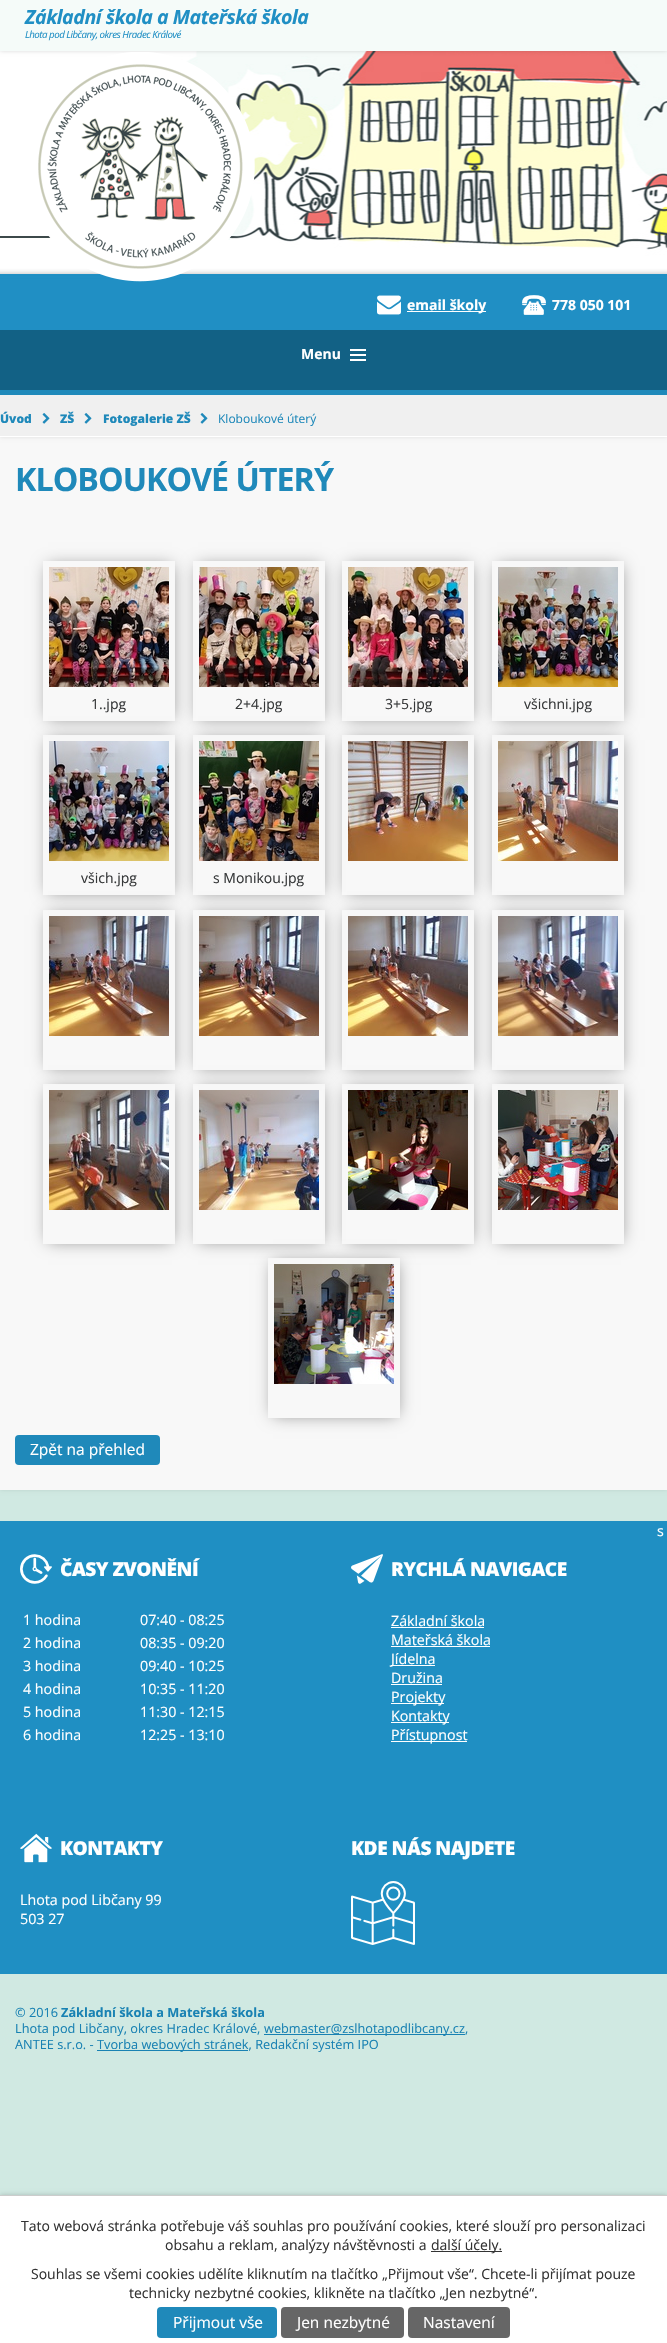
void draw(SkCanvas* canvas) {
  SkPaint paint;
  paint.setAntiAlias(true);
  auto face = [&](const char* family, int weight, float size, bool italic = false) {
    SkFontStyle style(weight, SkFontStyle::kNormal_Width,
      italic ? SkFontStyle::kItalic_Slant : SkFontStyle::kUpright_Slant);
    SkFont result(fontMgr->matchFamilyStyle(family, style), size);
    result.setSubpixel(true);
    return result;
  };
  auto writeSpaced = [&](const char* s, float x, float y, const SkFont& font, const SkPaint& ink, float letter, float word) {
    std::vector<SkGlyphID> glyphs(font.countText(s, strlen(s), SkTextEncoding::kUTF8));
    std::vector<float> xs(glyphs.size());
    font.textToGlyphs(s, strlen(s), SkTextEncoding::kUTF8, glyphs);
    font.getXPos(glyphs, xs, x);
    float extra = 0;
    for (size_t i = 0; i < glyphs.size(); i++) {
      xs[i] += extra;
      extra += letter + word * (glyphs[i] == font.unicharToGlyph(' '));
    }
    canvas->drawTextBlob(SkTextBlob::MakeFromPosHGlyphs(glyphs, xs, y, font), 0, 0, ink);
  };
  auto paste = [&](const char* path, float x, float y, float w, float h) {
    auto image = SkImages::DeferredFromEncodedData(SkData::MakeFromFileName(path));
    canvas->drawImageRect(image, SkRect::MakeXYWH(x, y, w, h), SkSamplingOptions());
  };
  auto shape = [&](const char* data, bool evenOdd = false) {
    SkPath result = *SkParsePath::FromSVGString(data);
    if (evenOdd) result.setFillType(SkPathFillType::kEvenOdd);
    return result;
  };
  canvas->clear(0xffd0e9e2);
  paste("img/1.png", 0, 51, 667, 279);
  paint.setColor(0x26000000);
  paint.setMaskFilter(SkMaskFilter::MakeBlur(kNormal_SkBlurStyle, 2));
  canvas->drawRect(SkRect::MakeXYWH(0, 0, 667, 51), paint);
  paint.setMaskFilter(nullptr);
  paint.setColor(0xfff5fbf9);
  canvas->drawRect(SkRect::MakeXYWH(0, 0, 667, 51), paint);
  paste("img/2.png", 38, 52, 217, 230);
  paste("img/3.png", 377, 295, 24, 20);
  paint.setColor(0xffffffff);
  canvas->drawRect(SkRect::MakeXYWH(407, 311, 79, 1), paint);
  paste("img/4.png", 522, 295, 24, 20);
  paint.setColor(0x1a000000);
  paint.setMaskFilter(SkMaskFilter::MakeBlur(kNormal_SkBlurStyle, 2));
  canvas->drawRect(SkRect::MakeXYWH(0, 392, 667, 1098), paint);
  paint.setMaskFilter(nullptr);
  paint.setColor(0xfff8f8f8);
  canvas->drawRect(SkRect::MakeXYWH(0, 437, 667, 1053), paint);
  paint.setColor(0x1a000000);
  paint.setMaskFilter(SkMaskFilter::MakeBlur(kNormal_SkBlurStyle, 2));
  canvas->drawRect(SkRect::MakeXYWH(0, 380, 667, 57), paint);
  paint.setMaskFilter(nullptr);
  paint.setColor(0xff126185);
  canvas->drawRect(SkRect::MakeXYWH(0, 330, 667, 60), paint);
  paste("img/5.png", 350, 349, 16, 12);
  {
    const struct { float x, y, w, h; SkColor color; } items[] = {
      {0, 395, 667, 41, 0xfff0f0f0},
      {0, 390, 667, 5, 0xff1f89ba},
      {0, 436, 667, 1, 0xffffffff},
    };
    for (auto [x, y, w, h, color] : items) {
      paint.setColor(color);
      canvas->drawRect(SkRect::MakeXYWH(x, y, w, h), paint);
    }
  }
  paste("img/6.png", 42, 413, 8, 11);
  paste("img/6.png", 84, 413, 8, 11);
  paste("img/6.png", 200, 413, 8, 11);
  canvas->save();
  canvas->clipPath(shape("M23 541H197V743H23ZM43 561H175V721H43Z", true), true);
  paint.setColor(0xff888888);
  paint.setMaskFilter(SkMaskFilter::MakeBlur(kNormal_SkBlurStyle, 8));
  canvas->drawRect(SkRect::MakeXYWH(48, 566, 124, 152), paint);
  paint.setMaskFilter(nullptr);
  canvas->restore();
  paste("img/7.png", 49, 567, 120, 120);
  canvas->save();
  canvas->clipPath(shape("M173 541H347V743H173ZM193 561H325V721H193Z", true), true);
  paint.setMaskFilter(SkMaskFilter::MakeBlur(kNormal_SkBlurStyle, 8));
  canvas->drawRect(SkRect::MakeXYWH(198, 566, 124, 152), paint);
  paint.setMaskFilter(nullptr);
  canvas->restore();
  paste("img/8.png", 199, 567, 120, 120);
  canvas->save();
  canvas->clipPath(shape("M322 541H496V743H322ZM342 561H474V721H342Z", true), true);
  paint.setMaskFilter(SkMaskFilter::MakeBlur(kNormal_SkBlurStyle, 8));
  canvas->drawRect(SkRect::MakeXYWH(347, 566, 124, 152), paint);
  paint.setMaskFilter(nullptr);
  canvas->restore();
  paste("img/9.png", 348, 567, 120, 120);
  canvas->save();
  canvas->clipPath(shape("M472 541H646V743H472ZM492 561H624V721H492Z", true), true);
  paint.setMaskFilter(SkMaskFilter::MakeBlur(kNormal_SkBlurStyle, 8));
  canvas->drawRect(SkRect::MakeXYWH(497, 566, 124, 152), paint);
  paint.setMaskFilter(nullptr);
  canvas->restore();
  paste("img/10.png", 498, 567, 120, 120);
  canvas->save();
  canvas->clipPath(shape("M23 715H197V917H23ZM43 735H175V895H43Z", true), true);
  paint.setMaskFilter(SkMaskFilter::MakeBlur(kNormal_SkBlurStyle, 8));
  canvas->drawRect(SkRect::MakeXYWH(48, 740, 124, 152), paint);
  paint.setMaskFilter(nullptr);
  canvas->restore();
  paste("img/11.png", 49, 741, 120, 120);
  canvas->save();
  canvas->clipPath(shape("M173 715H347V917H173ZM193 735H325V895H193Z", true), true);
  paint.setMaskFilter(SkMaskFilter::MakeBlur(kNormal_SkBlurStyle, 8));
  canvas->drawRect(SkRect::MakeXYWH(198, 740, 124, 152), paint);
  paint.setMaskFilter(nullptr);
  canvas->restore();
  paste("img/12.png", 199, 741, 120, 120);
  canvas->save();
  canvas->clipPath(shape("M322 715H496V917H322ZM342 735H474V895H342Z", true), true);
  paint.setMaskFilter(SkMaskFilter::MakeBlur(kNormal_SkBlurStyle, 8));
  canvas->drawRect(SkRect::MakeXYWH(347, 740, 124, 152), paint);
  paint.setMaskFilter(nullptr);
  canvas->restore();
  paste("img/13.png", 348, 741, 120, 120);
  canvas->save();
  canvas->clipPath(shape("M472 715H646V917H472ZM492 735H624V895H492Z", true), true);
  paint.setMaskFilter(SkMaskFilter::MakeBlur(kNormal_SkBlurStyle, 8));
  canvas->drawRect(SkRect::MakeXYWH(497, 740, 124, 152), paint);
  paint.setMaskFilter(nullptr);
  canvas->restore();
  paste("img/14.png", 498, 741, 120, 120);
  canvas->save();
  canvas->clipPath(shape("M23 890H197V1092H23ZM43 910H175V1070H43Z", true), true);
  paint.setMaskFilter(SkMaskFilter::MakeBlur(kNormal_SkBlurStyle, 8));
  canvas->drawRect(SkRect::MakeXYWH(48, 915, 124, 152), paint);
  paint.setMaskFilter(nullptr);
  canvas->restore();
  paste("img/15.png", 49, 916, 120, 120);
  canvas->save();
  canvas->clipPath(shape("M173 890H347V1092H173ZM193 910H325V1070H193Z", true), true);
  paint.setMaskFilter(SkMaskFilter::MakeBlur(kNormal_SkBlurStyle, 8));
  canvas->drawRect(SkRect::MakeXYWH(198, 915, 124, 152), paint);
  paint.setMaskFilter(nullptr);
  canvas->restore();
  paste("img/16.png", 199, 916, 120, 120);
  canvas->save();
  canvas->clipPath(shape("M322 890H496V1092H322ZM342 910H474V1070H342Z", true), true);
  paint.setMaskFilter(SkMaskFilter::MakeBlur(kNormal_SkBlurStyle, 8));
  canvas->drawRect(SkRect::MakeXYWH(347, 915, 124, 152), paint);
  paint.setMaskFilter(nullptr);
  canvas->restore();
  paste("img/17.png", 348, 916, 120, 120);
  canvas->save();
  canvas->clipPath(shape("M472 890H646V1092H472ZM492 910H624V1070H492Z", true), true);
  paint.setMaskFilter(SkMaskFilter::MakeBlur(kNormal_SkBlurStyle, 8));
  canvas->drawRect(SkRect::MakeXYWH(497, 915, 124, 152), paint);
  paint.setMaskFilter(nullptr);
  canvas->restore();
  paste("img/18.png", 498, 916, 120, 120);
  canvas->save();
  canvas->clipPath(shape("M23 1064H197V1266H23ZM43 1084H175V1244H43Z", true), true);
  paint.setMaskFilter(SkMaskFilter::MakeBlur(kNormal_SkBlurStyle, 8));
  canvas->drawRect(SkRect::MakeXYWH(48, 1089, 124, 152), paint);
  paint.setMaskFilter(nullptr);
  canvas->restore();
  paste("img/19.png", 49, 1090, 120, 120);
  canvas->save();
  canvas->clipPath(shape("M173 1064H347V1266H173ZM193 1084H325V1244H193Z", true), true);
  paint.setMaskFilter(SkMaskFilter::MakeBlur(kNormal_SkBlurStyle, 8));
  canvas->drawRect(SkRect::MakeXYWH(198, 1089, 124, 152), paint);
  paint.setMaskFilter(nullptr);
  canvas->restore();
  paste("img/20.png", 199, 1090, 120, 120);
  canvas->save();
  canvas->clipPath(shape("M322 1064H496V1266H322ZM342 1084H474V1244H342Z", true), true);
  paint.setMaskFilter(SkMaskFilter::MakeBlur(kNormal_SkBlurStyle, 8));
  canvas->drawRect(SkRect::MakeXYWH(347, 1089, 124, 152), paint);
  paint.setMaskFilter(nullptr);
  canvas->restore();
  paste("img/21.png", 348, 1090, 120, 120);
  canvas->save();
  canvas->clipPath(shape("M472 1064H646V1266H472ZM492 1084H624V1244H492Z", true), true);
  paint.setMaskFilter(SkMaskFilter::MakeBlur(kNormal_SkBlurStyle, 8));
  canvas->drawRect(SkRect::MakeXYWH(497, 1089, 124, 152), paint);
  paint.setMaskFilter(nullptr);
  canvas->restore();
  paste("img/22.png", 498, 1090, 120, 120);
  canvas->save();
  canvas->clipPath(shape("M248 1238H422V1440H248ZM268 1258H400V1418H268Z", true), true);
  paint.setMaskFilter(SkMaskFilter::MakeBlur(kNormal_SkBlurStyle, 8));
  canvas->drawRect(SkRect::MakeXYWH(273, 1263, 124, 152), paint);
  paint.setMaskFilter(nullptr);
  canvas->restore();
  paste("img/23.png", 274, 1264, 120, 120);
  paint.setColor(0xff1f89ba);
  canvas->drawRoundRect(SkRect::MakeXYWH(15, 1435, 145, 30), 4, 4, paint);
  paint.setColor(0xff1f8fc3);
  canvas->drawRect(SkRect::MakeXYWH(0, 1521, 667, 453), paint);
  paste("img/24.png", 20, 1554, 32, 30);
  paste("img/25.png", 351, 1554, 32, 30);
  {
    const struct { float x, y, w, h; SkColor color; } items[] = {
      {391, 1627, 93, 1, 0xffffffff},
      {391, 1646, 99, 1, 0xffffffff},
      {391, 1665, 44, 1, 0xffffffff},
      {391, 1684, 51, 1, 0xffffffff},
      {391, 1703, 53, 1, 0xffffffff},
      {391, 1722, 58, 1, 0xffffffff},
      {391, 1741, 76, 1, 0xffffffff},
    };
    for (auto [x, y, w, h, color] : items) {
      paint.setColor(color);
      canvas->drawRect(SkRect::MakeXYWH(x, y, w, h), paint);
    }
  }
  paste("img/26.png", 20, 1833, 32, 30);
  paste("img/27.png", 351, 1881, 64, 64);
  paint.setColor(0xff1982b3);
  canvas->drawRect(SkRect::MakeXYWH(264, 2034, 201, 1), paint);
  canvas->drawRect(SkRect::MakeXYWH(97, 2050, 151, 1), paint);
  paint.setColor(0x33000000);
  paint.setMaskFilter(SkMaskFilter::MakeBlur(kNormal_SkBlurStyle, 2.5f));
  canvas->drawRect(SkRect::MakeXYWH(0, 2195, 667, 148), paint);
  paint.setMaskFilter(nullptr);
  {
    const struct { float x, y, w, h; SkColor color; } items[] = {
      {0, 2196, 667, 147, 0xffffffff},
      {0, 2195, 667, 1, 0xffcccccc},
      {431, 2251, 71, 1, 0xff333333},
    };
    for (auto [x, y, w, h, color] : items) {
      paint.setColor(color);
      canvas->drawRect(SkRect::MakeXYWH(x, y, w, h), paint);
    }
  }
  paint.setColor(0xff1f89ba);
  canvas->drawRoundRect(SkRect::MakeXYWH(157, 2307, 120, 31), 4, 4, paint);
  paint.setColor(0xff666666);
  canvas->drawRoundRect(SkRect::MakeXYWH(281, 2307, 123, 31), 4, 4, paint);
  canvas->drawRoundRect(SkRect::MakeXYWH(408, 2307, 102, 31), 4, 4, paint);
  auto f0 = face("Open Sans", 700, 19.6f, true);
  paint.setColor(0xff208fc4);
  writeSpaced("Základní škola a Mateřská škola", 25, 24, f0, paint, -0.5f, 0);
  auto f1 = face("Open Sans", 400, 9.75f, true);
  writeSpaced("Lhota pod Libčany, okres Hradec Králové", 25, 38, f1, paint, -0.5f, 0);
  auto f2 = face("Open Sans", 700, 14);
  paint.setColor(0xffffffff);
  {
    const struct { const char* s; float x, y; } items[] = {
      {"email školy", 407, 310},
      {"778 050 101", 552, 310},
      {"Menu", 301, 359},
    };
    for (auto [s, x, y] : items) {
      canvas->drawString(s, x, y, f2, paint);
    }
  }
  auto f3 = face("Open Sans", 800, 12);
  paint.setColor(0xff1f89ba);
  {
    const struct { const char* s; float x, y; } items[] = {
      {"Úvod", 0, 423},
      {"ZŠ", 60, 423},
      {"Fotogalerie ZŠ", 103, 423},
    };
    for (auto [s, x, y] : items) {
      canvas->drawString(s, x, y, f3, paint);
    }
  }
  auto f4 = face("Open Sans", 400, 12);
  canvas->drawString("Kloboukové úterý", 218, 423, f4, paint);
  auto f5 = face("Open Sans", 700, 32.25f);
  writeSpaced("KLOBOUKOVÉ ÚTERÝ", 15, 491, f5, paint, -1, 0);
  auto f6 = face("Open Sans", 400, 14);
  paint.setColor(0xff37393a);
  {
    const struct { const char* s; float x, y; } items[] = {
      {"1..jpg", 91, 709},
      {"2+4.jpg", 235, 709},
      {"3+5.jpg", 385, 709},
      {"všichni.jpg", 524, 709},
      {"všich.jpg", 81, 883},
      {"s Monikou.jpg", 213, 883},
    };
    for (auto [s, x, y] : items) {
      canvas->drawString(s, x, y, f6, paint);
    }
  }
  auto f7 = face("Open Sans", 400, 15.5f);
  paint.setColor(0xffffffff);
  canvas->drawString("Zpět na přehled", 30, 1455, f7, paint);
  auto f8 = face("Open Sans", 400, 14.25f);
  canvas->drawString("s", 657, 1536, f8, paint);
  auto f9 = face("Open Sans", 800, 19.1f);
  writeSpaced("ČASY ZVONĚNÍ", 60, 1576, f9, paint, -0.5f, 0);
  {
    const struct { const char* s; float x, y; } items[] = {
      {"1 hodina", 23, 1625},
      {"07:40 - 08:25", 140, 1625},
      {"2 hodina", 23, 1648},
      {"08:35 - 09:20", 140, 1648},
      {"3 hodina", 23, 1671},
      {"09:40 - 10:25", 140, 1671},
      {"4 hodina", 23, 1694},
      {"10:35 - 11:20", 140, 1694},
      {"5 hodina", 23, 1717},
      {"11:30 - 12:15", 140, 1717},
      {"6 hodina", 23, 1740},
      {"12:25 - 13:10", 140, 1740},
    };
    for (auto [s, x, y] : items) {
      canvas->drawString(s, x, y, f8, paint);
    }
  }
  writeSpaced("RYCHLÁ NAVIGACE", 391, 1576, f9, paint, -0.5f, 0);
  {
    const struct { const char* s; float x, y; } items[] = {
      {"Základní škola", 391, 1626},
      {"Mateřská škola", 391, 1645},
      {"Jídelna", 391, 1664},
      {"Družina", 391, 1683},
      {"Projekty", 391, 1702},
      {"Kontakty", 391, 1721},
      {"Přístupnost", 391, 1740},
    };
    for (auto [s, x, y] : items) {
      canvas->drawString(s, x, y, f8, paint);
    }
  }
  writeSpaced("KONTAKTY", 60, 1855, f9, paint, -0.5f, 0);
  canvas->drawString("Lhota pod Libčany 99", 20, 1905, f8, paint);
  canvas->drawString("503 27", 20, 1924, f8, paint);
  writeSpaced("KDE NÁS NAJDETE", 351, 1855, f9, paint, -0.5f, 0);
  auto f10 = face("Open Sans", 400, 12.75f);
  paint.setColor(0xff1982b3);
  canvas->drawString("© 2016", 15, 2017, f10, paint);
  auto f11 = face("Open Sans", 700, 12.75f);
  canvas->drawString("Základní škola a Mateřská škola", 61, 2017, f11, paint);
  {
    const struct { const char* s; float x, y; } items[] = {
      {"Lhota pod Libčany, okres Hradec Králové,", 15, 2033},
      {"webmaster@zslhotapodlibcany.cz,", 264, 2033},
      {"ANTEE s.r.o. -", 15, 2049},
      {"Tvorba webových stránek, Redakční systém IPO", 97, 2049},
    };
    for (auto [s, x, y] : items) {
      canvas->drawString(s, x, y, f10, paint);
    }
  }
  paint.setColor(0xff333333);
  {
    const struct { const char* s; float x, y; } items[] = {
      {"Tato webová stránka potřebuje váš souhlas pro používání cookies, které slouží pro personalizaci", 21, 2231},
      {"obsahu a reklam, analýzy návštěvnosti a", 165, 2250},
      {"další účely.", 431, 2250},
      {"Souhlas se všemi cookies udělíte kliknutím na tlačítko „Přijmout vše“. Chcete-li přijímat pouze", 31, 2279},
      {"technicky nezbytné cookies, klikněte na tlačítko „Jen nezbytné“.", 129, 2298},
    };
    for (auto [s, x, y] : items) {
      canvas->drawString(s, x, y, f6, paint);
    }
  }
  paint.setColor(0xffffffff);
  {
    const struct { const char* s; float x, y; } items[] = {
      {"Přijmout vše", 173, 2328},
      {"Jen nezbytné", 297, 2328},
      {"Nastavení", 423, 2328},
    };
    for (auto [s, x, y] : items) {
      canvas->drawString(s, x, y, f7, paint);
    }
  }
}
